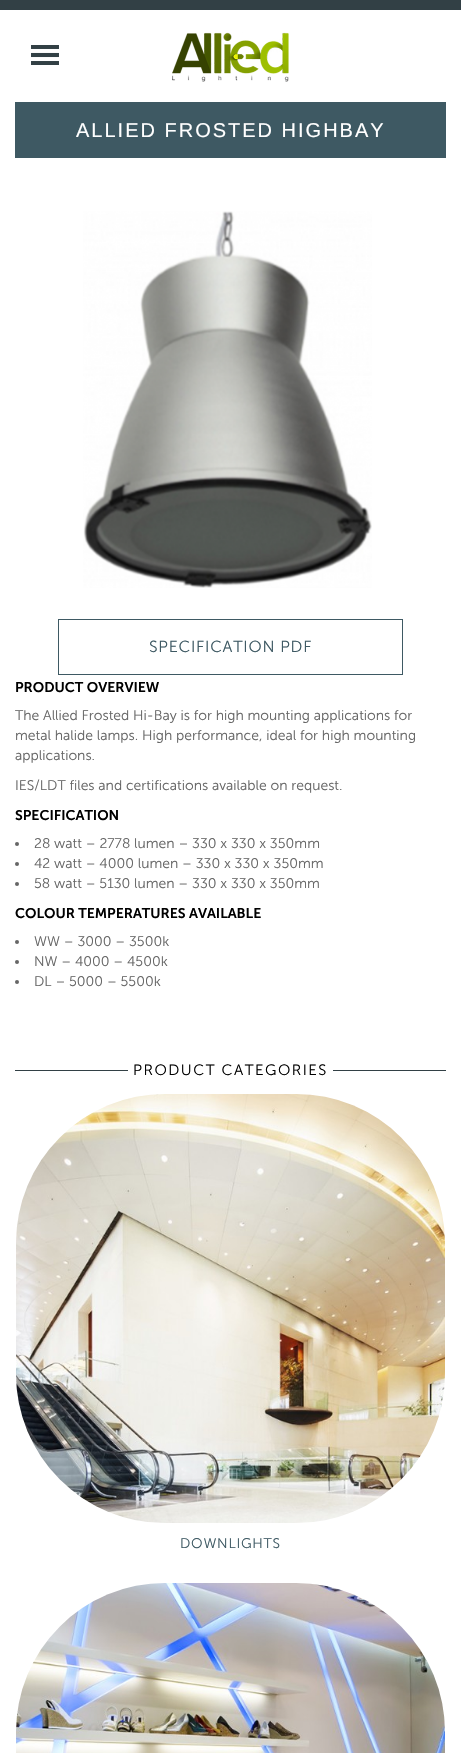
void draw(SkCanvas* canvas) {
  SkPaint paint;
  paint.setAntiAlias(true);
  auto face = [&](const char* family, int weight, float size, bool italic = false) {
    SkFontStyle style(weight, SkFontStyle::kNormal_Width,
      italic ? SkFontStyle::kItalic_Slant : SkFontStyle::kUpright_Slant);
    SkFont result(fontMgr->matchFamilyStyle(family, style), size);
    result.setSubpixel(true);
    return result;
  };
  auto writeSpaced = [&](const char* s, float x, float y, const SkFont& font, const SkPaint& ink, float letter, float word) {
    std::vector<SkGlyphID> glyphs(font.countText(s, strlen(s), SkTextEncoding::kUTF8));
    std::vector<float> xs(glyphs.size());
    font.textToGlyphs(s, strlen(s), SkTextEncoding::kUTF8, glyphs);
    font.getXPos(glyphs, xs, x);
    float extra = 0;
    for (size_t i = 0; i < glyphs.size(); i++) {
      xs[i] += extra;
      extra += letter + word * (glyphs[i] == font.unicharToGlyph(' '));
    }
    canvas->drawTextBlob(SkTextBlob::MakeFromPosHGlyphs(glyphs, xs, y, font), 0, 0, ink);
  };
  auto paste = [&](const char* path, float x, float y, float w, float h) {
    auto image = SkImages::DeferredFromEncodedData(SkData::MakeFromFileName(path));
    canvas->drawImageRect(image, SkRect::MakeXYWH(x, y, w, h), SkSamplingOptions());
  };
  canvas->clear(0xffffffff);
  paint.setColor(0xff324045);
  canvas->drawRect(SkRect::MakeXYWH(0, 0, 461, 10), paint);
  paste("img/1.png", 31, 45, 28, 20);
  paste("img/2.png", 172, 32, 117, 50);
  paint.setColor(0xff3e5963);
  canvas->drawRect(SkRect::MakeXYWH(15, 102, 431, 56), paint);
  paste("img/3.png", 83, 211, 289, 377);
  paint.setStroke(true);
  paint.setStrokeWidth(1);
  canvas->drawRect(SkRect::MakeXYWH(58.5f, 619.5f, 344, 55), paint);
  paint.setStroke(false);
  paint.setColor(0xff666666);
  canvas->drawCircle(17, 844, 2, paint);
  canvas->drawCircle(17, 864, 2, paint);
  canvas->drawCircle(17, 884, 2, paint);
  canvas->drawCircle(17, 942, 2, paint);
  canvas->drawCircle(17, 962, 2, paint);
  canvas->drawCircle(17, 982, 2, paint);
  paint.setColor(0xff324045);
  canvas->drawRect(SkRect::MakeXYWH(15, 1070, 431, 1), paint);
  paint.setColor(0xffffffff);
  canvas->drawRect(SkRect::MakeXYWH(128, 1070, 205, 1), paint);
  paste("img/4.png", 16, 1094, 429, 429);
  paste("img/5.png", 16, 1583, 429, 170);
  auto f0 = face("Liberation Sans", 400, 20);
  writeSpaced("ALLIED FROSTED HIGHBAY", 76, 137, f0, paint, 2, 0);
  auto f1 = face("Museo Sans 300", 300, 16);
  paint.setColor(0xff3e5963);
  writeSpaced("SPECIFICATION PDF", 149, 652, f1, paint, 0.75f, 0);
  auto f2 = face("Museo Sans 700", 600, 14);
  paint.setColor(0xff000000);
  canvas->drawString("PRODUCT OVERVIEW", 15, 692, f2, paint);
  auto f3 = face("Museo Sans 300", 300, 14);
  paint.setColor(0xff666666);
  {
    const struct { const char* s; float x, y; } items[] = {
      {"The Allied Frosted Hi-Bay is for high mounting applications for", 15, 720},
      {"metal halide lamps. High performance, ideal for high mounting", 15, 740},
      {"applications.", 15, 760},
      {"IES/LDT files and certifications available on request.", 15, 790},
    };
    for (auto [s, x, y] : items) {
      canvas->drawString(s, x, y, f3, paint);
    }
  }
  paint.setColor(0xff000000);
  canvas->drawString("SPECIFICATION", 15, 820, f2, paint);
  paint.setColor(0xff666666);
  {
    const struct { const char* s; float x, y; } items[] = {
      {"28 watt – 2778 lumen – 330 x 330 x 350mm", 34, 848},
      {"42 watt – 4000 lumen – 330 x 330 x 350mm", 34, 868},
      {"58 watt – 5130 lumen – 330 x 330 x 350mm", 34, 888},
    };
    for (auto [s, x, y] : items) {
      canvas->drawString(s, x, y, f3, paint);
    }
  }
  paint.setColor(0xff000000);
  canvas->drawString("COLOUR TEMPERATURES AVAILABLE", 15, 918, f2, paint);
  paint.setColor(0xff666666);
  {
    const struct { const char* s; float x, y; } items[] = {
      {"WW – 3000 – 3500k", 34, 946},
      {"NW – 4000 – 4500k", 34, 966},
      {"DL – 5000 – 5500k", 34, 986},
    };
    for (auto [s, x, y] : items) {
      canvas->drawString(s, x, y, f3, paint);
    }
  }
  auto f4 = face("Museo Sans 300", 300, 15);
  paint.setColor(0xff000000);
  writeSpaced("PRODUCT CATEGORIES", 133, 1075, f4, paint, 1.5f, 0);
  paint.setColor(0xff3e5963);
  writeSpaced("DOWNLIGHTS", 180, 1548, f3, paint, 0.75f, 0);
}
